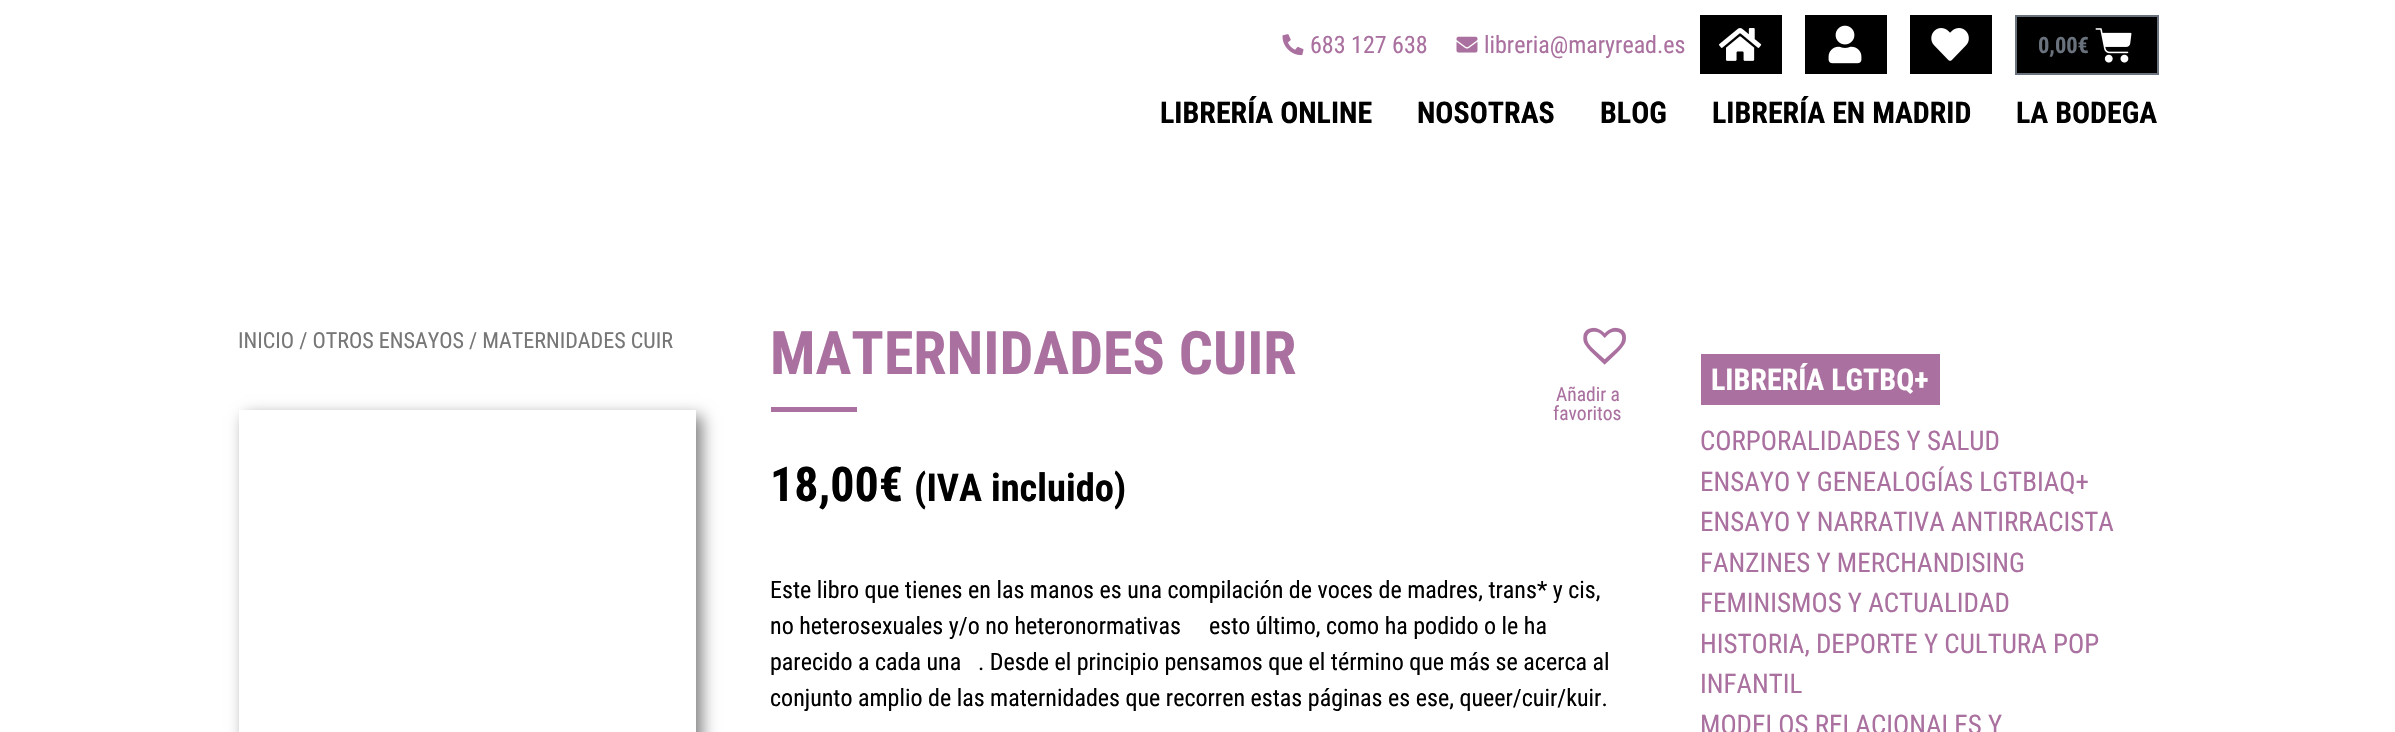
void draw(SkCanvas* canvas) {
  SkPaint paint;
  paint.setAntiAlias(true);
  auto face = [&](const char* family, int weight, float size, bool italic = false) {
    SkFontStyle style(weight, SkFontStyle::kNormal_Width,
      italic ? SkFontStyle::kItalic_Slant : SkFontStyle::kUpright_Slant);
    SkFont result(fontMgr->matchFamilyStyle(family, style), size);
    result.setSubpixel(true);
    return result;
  };
  auto paste = [&](const char* path, float x, float y, float w, float h) {
    auto image = SkImages::DeferredFromEncodedData(SkData::MakeFromFileName(path));
    canvas->drawImageRect(image, SkRect::MakeXYWH(x, y, w, h), SkSamplingOptions());
  };
  auto shape = [&](const char* data, bool evenOdd = false) {
    SkPath result = *SkParsePath::FromSVGString(data);
    if (evenOdd) result.setFillType(SkPathFillType::kEvenOdd);
    return result;
  };
  canvas->clear(0xffffffff);
  paste("img/1.png", 1282, 34, 22, 22);
  paste("img/2.png", 1456, 36, 22, 17);
  paint.setColor(0xff000000);
  canvas->drawRect(SkRect::MakeXYWH(1700, 15, 82, 59), paint);
  paste("img/3.png", 1719, 28, 43, 33);
  canvas->drawRect(SkRect::MakeXYWH(1805, 15, 82, 59), paint);
  paste("img/4.png", 1828, 25, 34, 39);
  canvas->drawRect(SkRect::MakeXYWH(1910, 15, 82, 59), paint);
  paste("img/5.png", 1931, 28, 38, 33);
  canvas->drawRect(SkRect::MakeXYWH(2016, 16, 142, 58), paint);
  paint.setStroke(true);
  paint.setStrokeWidth(2);
  paint.setColor(0xff69727d);
  canvas->drawRect(SkRect::MakeXYWH(2016, 16, 142, 58), paint);
  paste("img/6.png", 2095, 28, 37, 35);
  canvas->save();
  canvas->clipPath(shape("M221 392H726V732H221ZM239 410H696V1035H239Z", true), true);
  paint.setStroke(false);
  paint.setColor(0x80000000);
  paint.setMaskFilter(SkMaskFilter::MakeBlur(kNormal_SkBlurStyle, 7.5f));
  canvas->drawRect(SkRect::MakeXYWH(245, 416, 457, 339), paint);
  paint.setMaskFilter(nullptr);
  canvas->restore();
  paste("img/7.png", 1583, 327, 43, 38);
  paint.setColor(0xffaa709f);
  canvas->drawRect(SkRect::MakeXYWH(771, 407, 86, 5), paint);
  canvas->drawRect(SkRect::MakeXYWH(1701, 354, 239, 51), paint);
  auto f0 = face("Roboto Condensed", 400, 24);
  canvas->drawString("683 127 638", 1310, 53, f0, paint);
  canvas->drawString("libreria@maryread.es", 1484, 53, f0, paint);
  auto f1 = face("Roboto Condensed", 700, 22.5f);
  paint.setColor(0xff69727d);
  canvas->drawString("0,00€", 2038, 53, f1, paint);
  auto f2 = face("Roboto Condensed", 700, 30);
  paint.setColor(0xff000000);
  {
    const struct { const char* s; float x, y; } items[] = {
      {"LIBRERÍA ONLINE", 1160, 123},
      {"NOSOTRAS", 1417, 123},
      {"BLOG", 1600, 123},
      {"LIBRERÍA EN MADRID", 1712, 123},
      {"LA BODEGA", 2016, 123},
    };
    for (auto [s, x, y] : items) {
      canvas->drawString(s, x, y, f2, paint);
    }
  }
  auto f3 = face("Roboto Condensed", 400, 22.1f);
  paint.setColor(0xff767676);
  canvas->drawString("INICIO / OTROS ENSAYOS / MATERNIDADES CUIR", 238, 348, f3, paint);
  auto f4 = face("Roboto Condensed", 700, 60);
  paint.setColor(0xffaa709f);
  canvas->drawString("MATERNIDADES CUIR", 770, 374, f4, paint);
  auto f5 = face("Roboto Condensed", 400, 19.5f);
  canvas->drawString("Añadir a", 1556, 401, f5, paint);
  canvas->drawString("favoritos", 1553, 420, f5, paint);
  auto f6 = face("Roboto Condensed", 700, 48);
  paint.setColor(0xff000000);
  canvas->drawString("18,00€", 770, 501, f6, paint);
  auto f7 = face("Roboto Condensed", 700, 38.5f);
  canvas->drawString("(IVA incluido)", 914, 501, f7, paint);
  {
    const struct { const char* s; float x, y; } items[] = {
      {"Este libro que tienes en las manos es una compilación de voces de madres, trans* y cis,", 770, 598},
      {"no heterosexuales y/o no heteronormativas", 770, 634},
      {"esto último, como ha podido o le ha", 1209, 634},
      {"parecido a cada una", 770, 670},
      {". Desde el principio pensamos que el término que más se acerca al", 978, 670},
      {"conjunto amplio de las maternidades que recorren estas páginas es ese, queer/cuir/kuir.", 770, 706},
    };
    for (auto [s, x, y] : items) {
      canvas->drawString(s, x, y, f0, paint);
    }
  }
  paint.setColor(0xffffffff);
  canvas->drawString("LIBRERÍA LGTBQ+", 1711, 390, f2, paint);
  auto f8 = face("Roboto Condensed", 400, 27);
  paint.setColor(0xffaa709f);
  {
    const struct { const char* s; float x, y; } items[] = {
      {"CORPORALIDADES Y SALUD", 1700, 450},
      {"ENSAYO Y GENEALOGÍAS LGTBIAQ+", 1700, 491},
      {"ENSAYO Y NARRATIVA ANTIRRACISTA", 1700, 531},
      {"FANZINES Y MERCHANDISING", 1700, 572},
      {"FEMINISMOS Y ACTUALIDAD", 1700, 612},
      {"HISTORIA, DEPORTE Y CULTURA POP", 1700, 653},
      {"INFANTIL", 1700, 693},
      {"MODELOS RELACIONALES Y", 1700, 734},
    };
    for (auto [s, x, y] : items) {
      canvas->drawString(s, x, y, f8, paint);
    }
  }
}
